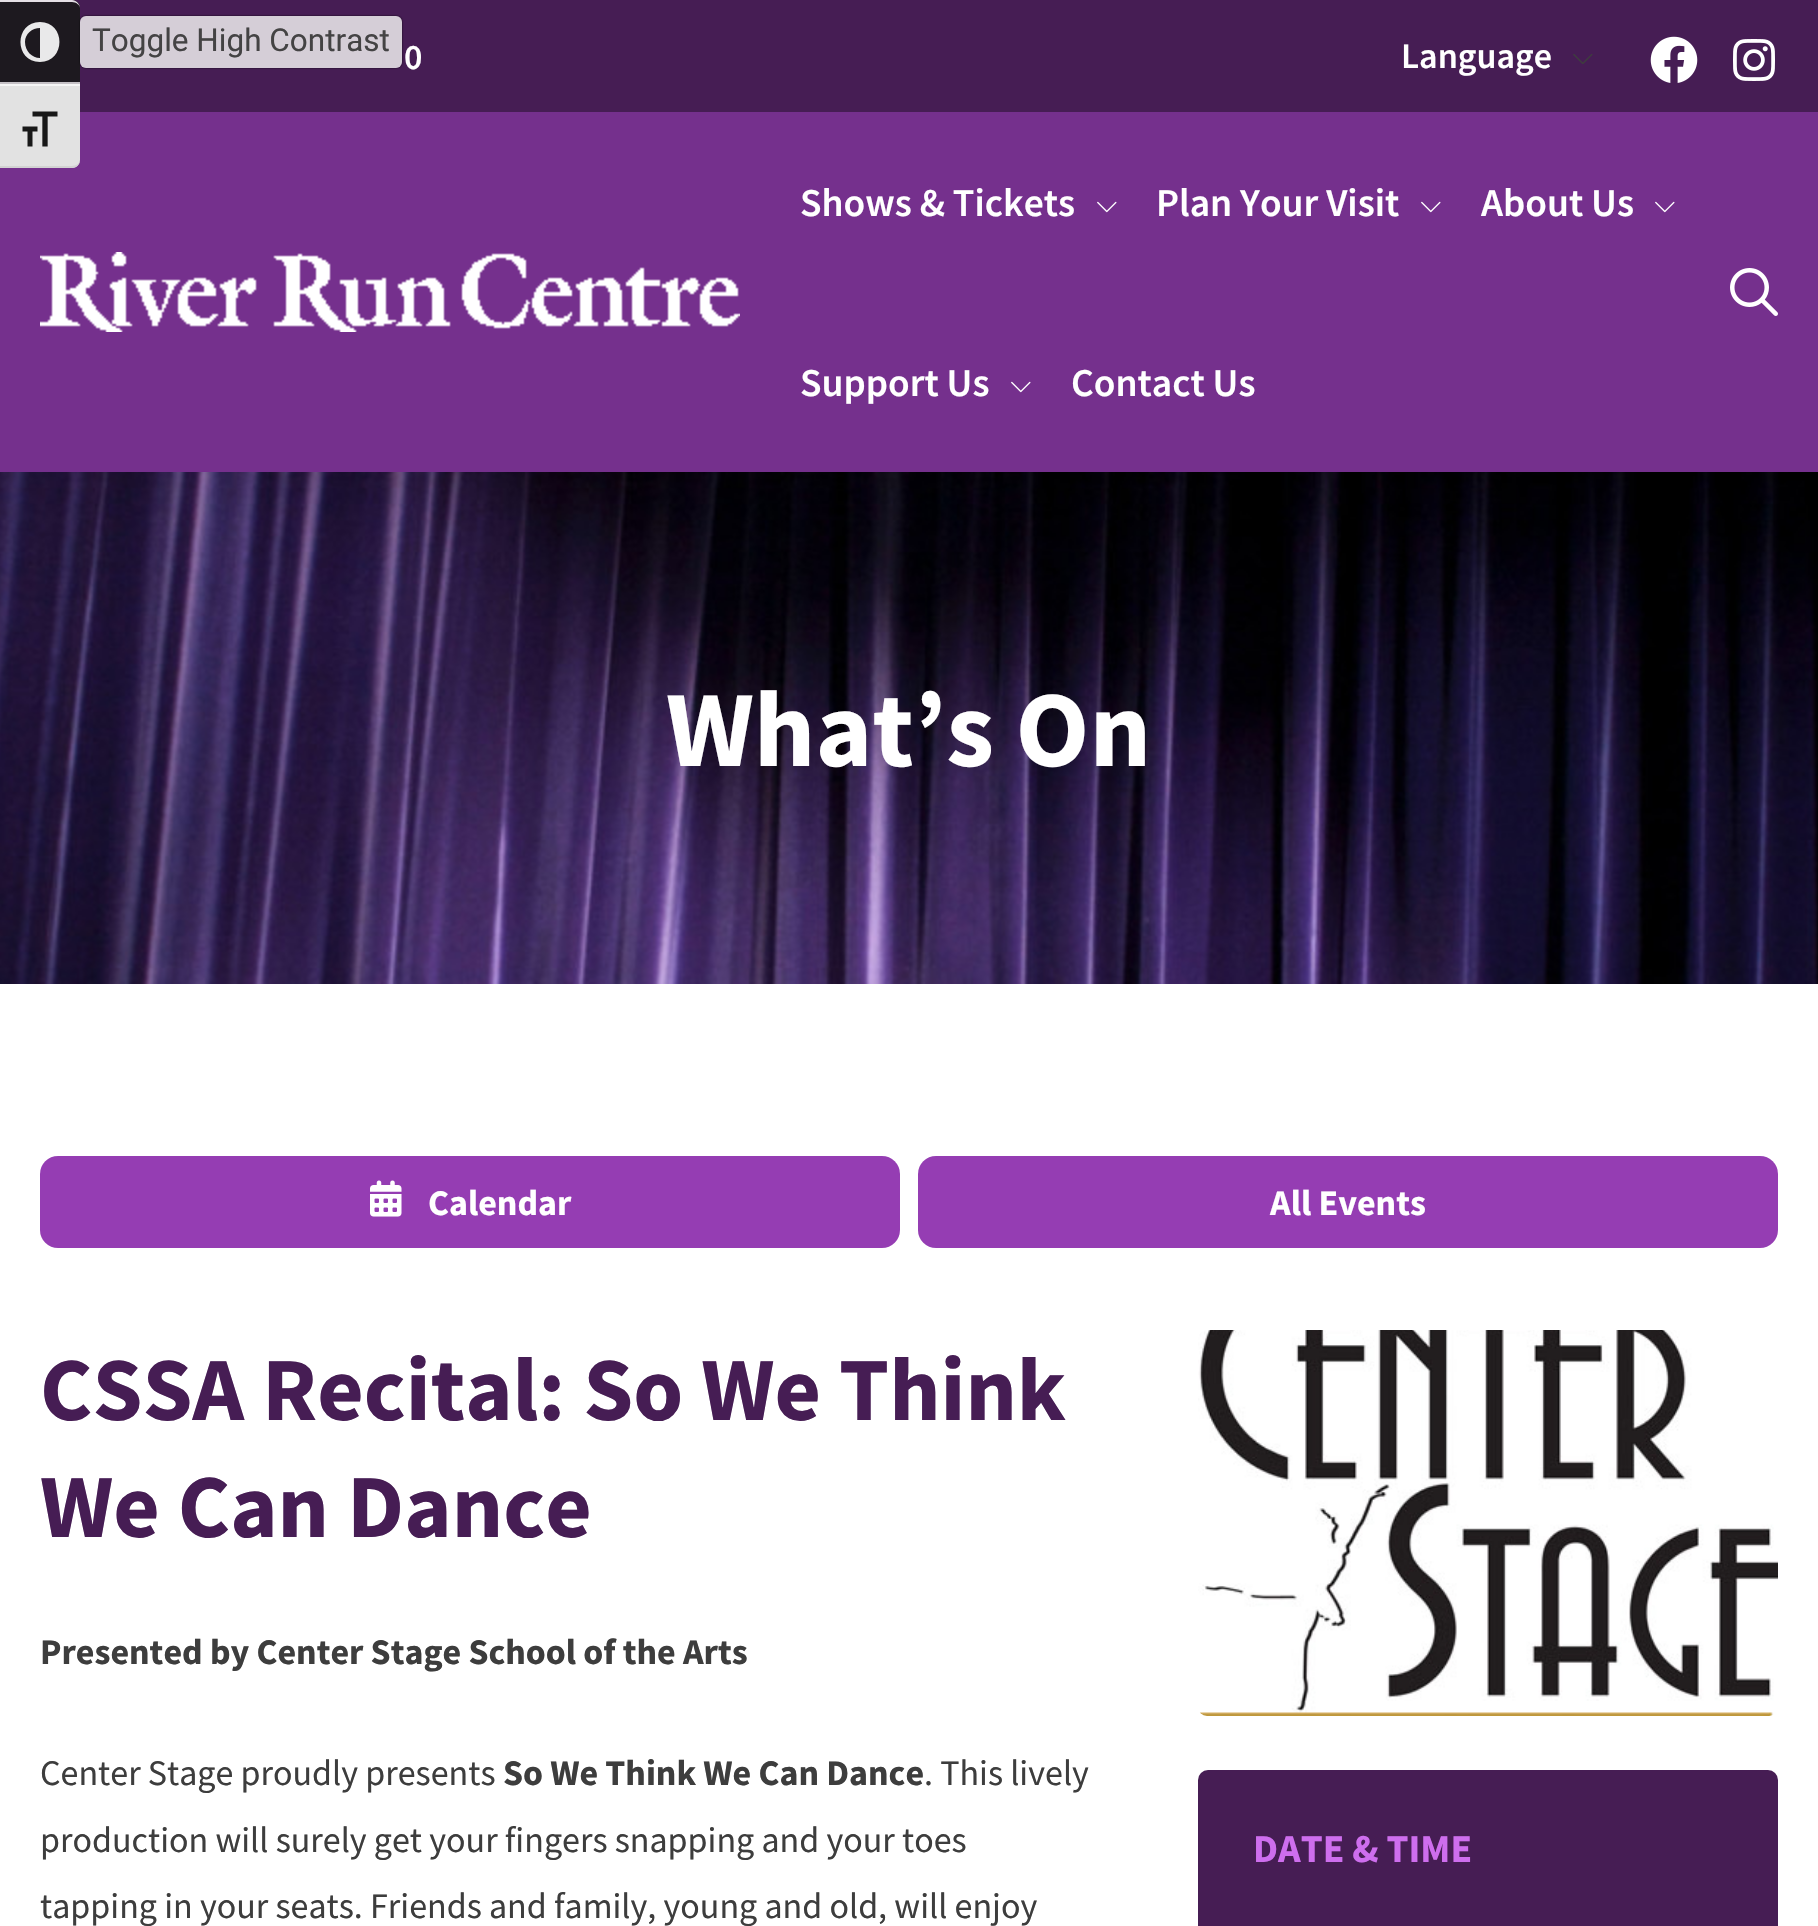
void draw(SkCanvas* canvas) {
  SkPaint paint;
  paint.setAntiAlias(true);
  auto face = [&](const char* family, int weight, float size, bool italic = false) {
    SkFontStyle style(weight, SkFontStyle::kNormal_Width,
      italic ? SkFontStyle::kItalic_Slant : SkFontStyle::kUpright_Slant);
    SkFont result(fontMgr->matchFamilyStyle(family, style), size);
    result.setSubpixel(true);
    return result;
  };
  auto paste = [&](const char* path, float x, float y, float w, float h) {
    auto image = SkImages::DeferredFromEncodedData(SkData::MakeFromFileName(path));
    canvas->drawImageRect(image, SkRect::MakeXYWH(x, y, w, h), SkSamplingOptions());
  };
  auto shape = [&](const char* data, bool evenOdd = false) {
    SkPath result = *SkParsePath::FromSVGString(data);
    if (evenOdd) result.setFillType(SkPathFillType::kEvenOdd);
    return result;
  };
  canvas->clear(0xffffffff);
  paint.setColor(0xff461d54);
  canvas->drawRect(SkRect::MakeXYWH(0, 0, 1818, 112), paint);
  paint.setColor(0xe6181818);
  canvas->drawPath(shape("M0 0H72C76.5 0 80 3.5 80 8V84H0Z"), paint);
  paint.setColor(0xffe4dfe5);
  canvas->drawPath(shape("M0 0V2H72C76 2 80 5 80 8C80 4 76 0 72 0Z"), paint);
  paint.setColor(0xffc4c0c5);
  canvas->drawRect(SkRect::MakeXYWH(0, 82, 80, 2), paint);
  paint.setColor(0xe6ffffff);
  canvas->drawPath(shape("M40 22C14 22 14 62 40 62C66 62 66 22 40 22ZM25 42C25 34 32 28 40 28V58C32 58 25 51 25 42Z"), paint);
  canvas->save();
  canvas->clipPath(shape("M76 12H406V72H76ZM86 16H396C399.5 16 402 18.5 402 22V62C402 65.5 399.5 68 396 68H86C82.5 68 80 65.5 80 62V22C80 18.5 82.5 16 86 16Z", true), true);
  paint.setColor(0xe6000000);
  paint.setMaskFilter(SkMaskFilter::MakeBlur(kNormal_SkBlurStyle, 1));
  canvas->drawRoundRect(SkRect::MakeXYWH(80, 16, 322, 52), 6, 6, paint);
  paint.setMaskFilter(nullptr);
  canvas->restore();
  paint.setColor(0xd6f0f0f0);
  canvas->drawRoundRect(SkRect::MakeXYWH(80, 16, 322, 52), 6, 6, paint);
  paint.setColor(0xff75308d);
  canvas->drawRect(SkRect::MakeXYWH(0, 112, 1818, 360), paint);
  paint.setColor(0xffe2e2e2);
  canvas->drawPath(shape("M0 84H80V160C80 164.5 76.5 168 72 168H0Z"), paint);
  paint.setColor(0xfff5f5f5);
  canvas->drawRect(SkRect::MakeXYWH(0, 84, 80, 2), paint);
  paint.setColor(0xffd2d2d2);
  canvas->drawPath(shape("M0 166V168H72C76 168 80 164 80 160C80 163 76 166 72 166Z"), paint);
  paste("img/1.png", 22, 111, 36, 36);
  paste("img/2.png", 1573, 54, 20, 10);
  paste("img/3.png", 1650, 36, 48, 47);
  paste("img/4.png", 1733, 39, 42, 42);
  paste("img/5.png", 40, 252, 700, 80);
  paste("img/6.png", 1097, 201, 20, 12);
  paste("img/6.png", 1421, 201, 20, 12);
  paste("img/6.png", 1655, 201, 20, 12);
  paste("img/6.png", 1011, 381, 20, 12);
  paste("img/7.png", 1730, 268, 48, 48);
  paste("img/8.png", 0, 472, 1818, 512);
  paint.setColor(0xff953db3);
  canvas->drawRoundRect(SkRect::MakeXYWH(40, 1156, 860, 92), 18, 18, paint);
  paste("img/9.png", 370, 1180, 32, 37);
  canvas->drawRoundRect(SkRect::MakeXYWH(918, 1156, 860, 92), 18, 18, paint);
  paste("img/10.png", 1198, 1330, 580, 386);
  paint.setColor(0xff461d54);
  canvas->drawRoundRect(SkRect::MakeXYWH(1198, 1770, 580, 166), 10, 10, paint);
  auto f0 = face("Roboto", 400, 31.5f);
  paint.setColor(0xff444344);
  canvas->drawString("Toggle High Contrast", 92, 51, f0, paint);
  auto f1 = face("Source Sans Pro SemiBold", 600, 36);
  paint.setColor(0xffffffff);
  canvas->drawString("0", 404, 69, f1, paint);
  canvas->drawString("Language", 1401, 68, f1, paint);
  auto f2 = face("Source Sans Pro SemiBold", 600, 39.5f);
  {
    const struct { const char* s; float x, y; } items[] = {
      {"Shows & Tickets", 800, 216},
      {"Plan Your Visit", 1156, 216},
      {"About Us", 1481, 216},
      {"Support Us", 800, 396},
      {"Contact Us", 1071, 396},
    };
    for (auto [s, x, y] : items) {
      canvas->drawString(s, x, y, f2, paint);
    }
  }
  auto f3 = face("Source Sans Pro", 700, 108);
  canvas->drawString("What’s On", 666, 766, f3, paint);
  auto f4 = face("Source Sans Pro", 700, 36);
  canvas->drawString("Calendar", 428, 1215, f4, paint);
  canvas->drawString("All Events", 1270, 1215, f4, paint);
  auto f5 = face("Source Sans Pro", 700, 90);
  paint.setColor(0xff461d54);
  canvas->drawString("CSSA Recital: So We Think", 40, 1420, f5, paint);
  canvas->drawString("We Can Dance", 40, 1537, f5, paint);
  paint.setColor(0xff3d3d3d);
  canvas->drawString("Presented by Center Stage School of the Arts", 40, 1664, f4, paint);
  auto f6 = face("Source Sans Pro", 400, 36);
  canvas->drawString("Center Stage proudly presents", 40, 1785, f6, paint);
  canvas->drawString("So We Think We Can Dance", 503, 1785, f4, paint);
  {
    const struct { const char* s; float x, y; } items[] = {
      {". This lively", 924, 1785},
      {"production will surely get your fingers snapping and your toes", 40, 1852},
      {"tapping in your seats. Friends and family, young and old, will enjoy", 40, 1918},
    };
    for (auto [s, x, y] : items) {
      canvas->drawString(s, x, y, f6, paint);
    }
  }
  auto f7 = face("Source Sans Pro", 700, 39.5f);
  paint.setColor(0xffce6eee);
  canvas->drawString("DATE & TIME", 1253, 1862, f7, paint);
}
